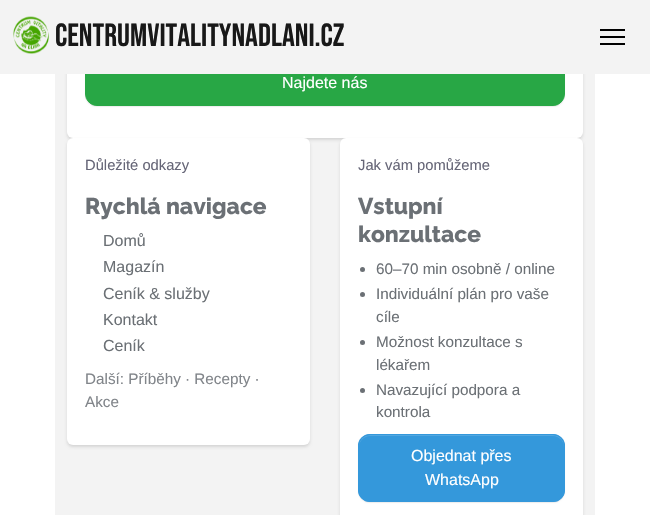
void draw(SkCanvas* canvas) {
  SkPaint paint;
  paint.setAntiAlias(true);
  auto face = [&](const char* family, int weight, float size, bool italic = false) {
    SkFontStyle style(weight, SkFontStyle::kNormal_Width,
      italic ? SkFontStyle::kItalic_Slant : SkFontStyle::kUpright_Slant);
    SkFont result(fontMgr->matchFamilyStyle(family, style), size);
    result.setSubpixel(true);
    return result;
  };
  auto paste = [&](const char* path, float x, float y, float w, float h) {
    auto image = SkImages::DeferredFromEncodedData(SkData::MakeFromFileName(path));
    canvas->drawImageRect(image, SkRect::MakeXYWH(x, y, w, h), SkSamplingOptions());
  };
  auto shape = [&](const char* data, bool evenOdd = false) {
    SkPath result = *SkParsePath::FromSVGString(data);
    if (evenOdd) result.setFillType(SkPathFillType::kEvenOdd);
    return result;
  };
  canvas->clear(0xffffffff);
  paint.setColor(0xfff3f3f3);
  canvas->drawRect(SkRect::MakeXYWH(55, 74, 540, 441), paint);
  paint.setColor(0x1f000000);
  paint.setMaskFilter(SkMaskFilter::MakeBlur(kNormal_SkBlurStyle, 1.5f));
  canvas->drawRoundRect(SkRect::MakeXYWH(67, -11, 516, 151), 6, 6, paint);
  paint.setMaskFilter(nullptr);
  paint.setColor(0xffffffff);
  canvas->drawRoundRect(SkRect::MakeXYWH(67, -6, 516, 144), 6, 6, paint);
  paint.setColor(0x12000000);
  paint.setMaskFilter(SkMaskFilter::MakeBlur(kNormal_SkBlurStyle, 0.5f));
  canvas->drawRoundRect(SkRect::MakeXYWH(85, 62, 480, 45), 12, 12, paint);
  paint.setMaskFilter(nullptr);
  paint.setColor(0xff28a745);
  canvas->drawRoundRect(SkRect::MakeXYWH(85.5f, 61.5f, 479, 44), 11.5f, 11.5f, paint);
  paint.setStroke(true);
  paint.setStrokeWidth(1);
  canvas->drawRoundRect(SkRect::MakeXYWH(85.5f, 61.5f, 479, 44), 11.5f, 11.5f, paint);
  paint.setStroke(false);
  paint.setColor(0xfff3f3f3);
  canvas->drawRect(SkRect::MakeXYWH(0, 0, 650, 74), paint);
  paste("img/1.png", 13, 16, 36, 38);
  {
    const struct { float x, y, w, h; SkColor color; } items[] = {
      {600, 29, 25, 2, 0xff000000},
      {600, 36, 25, 2, 0xff000000},
      {600, 43, 25, 2, 0xff000000},
    };
    for (auto [x, y, w, h, color] : items) {
      paint.setColor(color);
      canvas->drawRect(SkRect::MakeXYWH(x, y, w, h), paint);
    }
  }
  paint.setColor(0x1f000000);
  paint.setMaskFilter(SkMaskFilter::MakeBlur(kNormal_SkBlurStyle, 1.5f));
  canvas->drawRoundRect(SkRect::MakeXYWH(67, 140, 243, 307), 6, 6, paint);
  paint.setMaskFilter(nullptr);
  paint.setColor(0xffffffff);
  canvas->drawRoundRect(SkRect::MakeXYWH(67, 138, 243, 307), 6, 6, paint);
  paint.setColor(0x1f000000);
  paint.setMaskFilter(SkMaskFilter::MakeBlur(kNormal_SkBlurStyle, 1.5f));
  canvas->drawRoundRect(SkRect::MakeXYWH(340, 140, 243, 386), 6, 6, paint);
  paint.setMaskFilter(nullptr);
  paint.setColor(0xffffffff);
  canvas->drawRoundRect(SkRect::MakeXYWH(340, 138, 243, 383), 6, 6, paint);
  paint.setColor(0xff6b7075);
  canvas->drawCircle(362.5f, 269.5f, 2.5f, paint);
  canvas->drawCircle(362.5f, 294.5f, 2.5f, paint);
  canvas->drawCircle(362.5f, 342.5f, 2.5f, paint);
  canvas->drawCircle(362.5f, 390.5f, 2.5f, paint);
  paint.setColor(0x12000000);
  paint.setMaskFilter(SkMaskFilter::MakeBlur(kNormal_SkBlurStyle, 0.5f));
  canvas->drawRoundRect(SkRect::MakeXYWH(358, 435, 207, 68), 12, 12, paint);
  paint.setMaskFilter(nullptr);
  paint.setColor(0xff3498db);
  canvas->drawRoundRect(SkRect::MakeXYWH(358, 434, 207, 68), 12, 12, paint);
  paint.setColor(0xff52a7e0);
  canvas->drawPath(shape("M370 436H553C559 436 564 441 564 447V446C564 440 559 435 553 435H370C364 435 359 440 359 446V447C359 441 364 436 370 436Z"), paint);
  paint.setStroke(true);
  paint.setColor(0xff3498db);
  canvas->drawRoundRect(SkRect::MakeXYWH(358.5f, 434.5f, 206, 67), 11.5f, 11.5f, paint);
  auto f0 = face("Bebas Neue", 400, 32);
  paint.setStroke(false);
  paint.setColor(0xff181818);
  canvas->drawString("CENTRUMVITALITYNADLANI.CZ", 55, 46, f0, paint);
  auto f1 = face("Liberation Sans", 400, 16);
  paint.setColor(0xffffffff);
  canvas->drawString("Najdete nás", 282, 88, f1, paint);
  auto f2 = face("Liberation Sans", 400, 14.75f);
  paint.setColor(0xff666677);
  canvas->drawString("Důležité odkazy", 85, 170, f2, paint);
  auto f3 = face("Raleway", 100, 22.75f);
  paint.setColor(0xff6b7075);
  canvas->drawString("Rychlá navigace", 85, 214, f3, paint);
  {
    const struct { const char* s; float x, y; } items[] = {
      {"Domů", 103, 246},
      {"Magazín", 103, 272},
      {"Ceník & služby", 103, 299},
      {"Kontakt", 103, 325},
      {"Ceník", 103, 351},
    };
    for (auto [s, x, y] : items) {
      canvas->drawString(s, x, y, f1, paint);
    }
  }
  auto f4 = face("Liberation Sans", 400, 15.25f);
  paint.setColor(0xff81858a);
  canvas->drawString("Další: Příběhy · Recepty ·", 85, 384, f4, paint);
  canvas->drawString("Akce", 85, 407, f4, paint);
  paint.setColor(0xff666677);
  canvas->drawString("Jak vám pomůžeme", 358, 170, f2, paint);
  paint.setColor(0xff6b7075);
  canvas->drawString("Vstupní", 358, 214, f3, paint);
  canvas->drawString("konzultace", 358, 242, f3, paint);
  {
    const struct { const char* s; float x, y; } items[] = {
      {"60–70 min osobně / online", 376, 274},
      {"Individuální plán pro vaše", 376, 299},
      {"cíle", 376, 322},
      {"Možnost konzultace s", 376, 347},
      {"lékařem", 376, 370},
      {"Navazující podpora a", 376, 395},
      {"kontrola", 376, 417},
    };
    for (auto [s, x, y] : items) {
      canvas->drawString(s, x, y, f4, paint);
    }
  }
  paint.setColor(0xffffffff);
  canvas->drawString("Objednat přes", 411, 461, f1, paint);
  canvas->drawString("WhatsApp", 425, 485, f1, paint);
}
